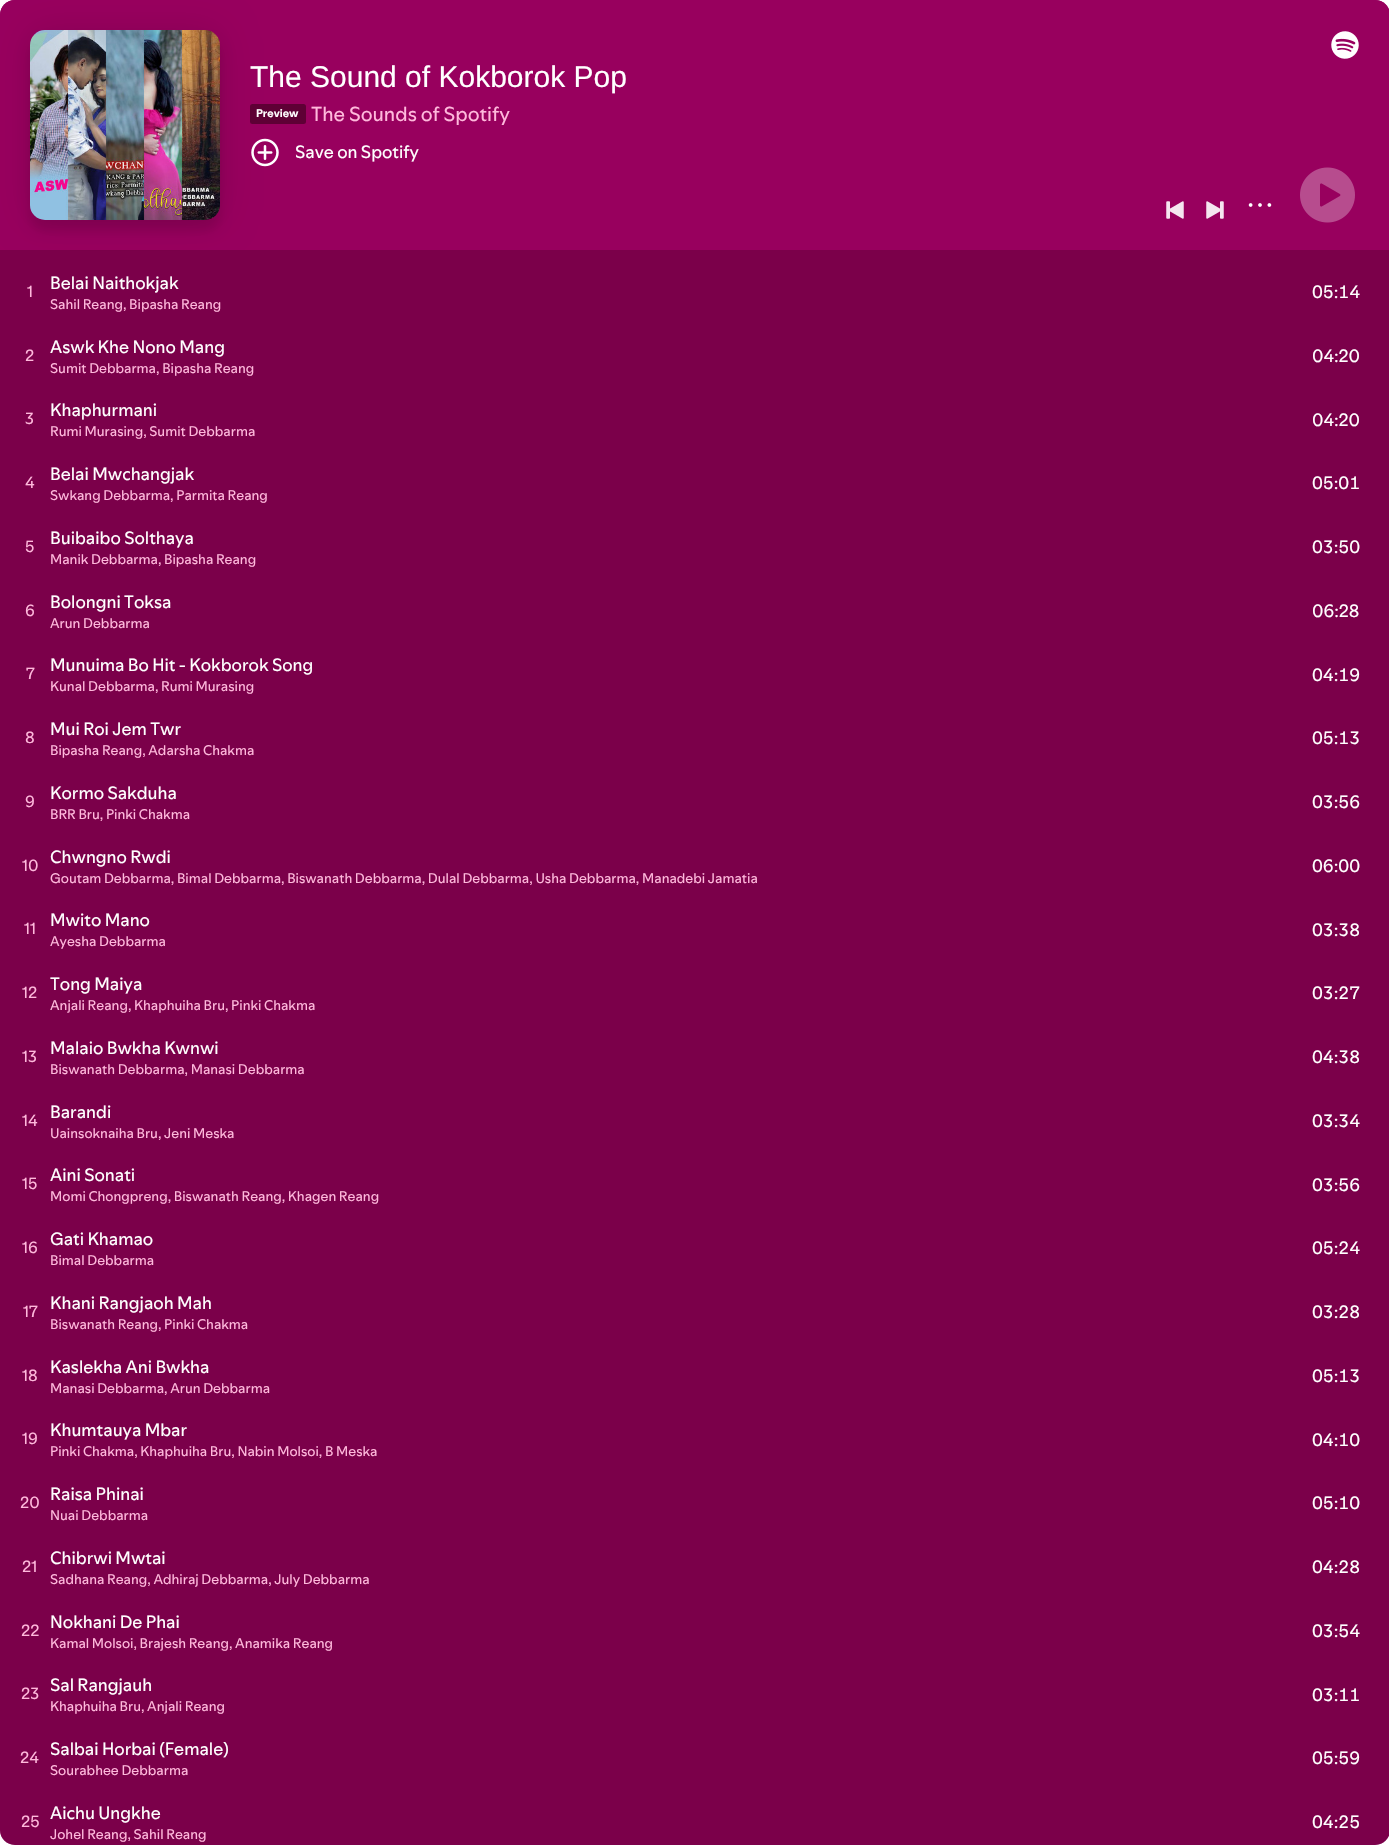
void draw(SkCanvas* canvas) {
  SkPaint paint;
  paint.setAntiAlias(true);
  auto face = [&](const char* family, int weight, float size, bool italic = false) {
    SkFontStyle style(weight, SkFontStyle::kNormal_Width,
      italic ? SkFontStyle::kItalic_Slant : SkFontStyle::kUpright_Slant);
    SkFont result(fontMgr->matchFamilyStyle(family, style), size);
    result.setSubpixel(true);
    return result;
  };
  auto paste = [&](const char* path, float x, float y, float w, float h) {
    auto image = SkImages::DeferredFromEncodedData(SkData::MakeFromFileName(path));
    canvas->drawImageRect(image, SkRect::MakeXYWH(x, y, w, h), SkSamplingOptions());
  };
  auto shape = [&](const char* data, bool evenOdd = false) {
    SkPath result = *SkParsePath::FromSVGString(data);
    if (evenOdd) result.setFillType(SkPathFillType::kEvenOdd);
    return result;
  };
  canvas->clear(0xffffffff);
  paint.setColor(0xff98005e);
  canvas->drawRoundRect(SkRect::MakeXYWH(0, 0, 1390, 1845), 15, 15, paint);
  canvas->drawPath(shape("M15 0H1375C1383.5 0 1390 6.5 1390 15V250H0V15C0 6.5 6.5 0 15 0Z"), paint);
  paint.setColor(0xff5e0035);
  canvas->drawRoundRect(SkRect::MakeXYWH(250, 104, 56, 20), 2.5f, 2.5f, paint);
  paint.setColor(0x805e0035);
  canvas->drawPath(shape("M0 250H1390V1830C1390 1838.5 1383.5 1845 1375 1845H15C6.5 1845 0 1838.5 0 1830Z"), paint);
  paint.setColor(0x1a000000);
  paint.setMaskFilter(SkMaskFilter::MakeBlur(kNormal_SkBlurStyle, 18));
  canvas->drawRoundRect(SkRect::MakeXYWH(30, 30, 190, 190), 15, 15, paint);
  paint.setMaskFilter(nullptr);
  paint.setMaskFilter(SkMaskFilter::MakeBlur(kNormal_SkBlurStyle, 5.5f));
  canvas->drawRoundRect(SkRect::MakeXYWH(30, 41, 190, 190), 15, 15, paint);
  paint.setMaskFilter(nullptr);
  paste("img/1.png", 30, 30, 190, 190);
  paste("img/2.png", 1331, 31, 28, 28);
  paste("img/3.png", 251, 138, 28, 29);
  paste("img/4.png", 1166, 201, 18, 18);
  paste("img/5.png", 1206, 201, 18, 18);
  paste("img/6.png", 1248, 203, 24, 4);
  paste("img/7.png", 1300, 167, 55, 56);
  auto f0 = face("Liberation Sans", 400, 30);
  paint.setColor(0xffffffff);
  canvas->drawString("The Sound of Kokborok Pop", 250, 87, f0, paint);
  auto f1 = face("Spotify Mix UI", 700, 11);
  canvas->drawString("Preview", 256, 117, f1, paint);
  auto f2 = face("Spotify Mix UI", 400, 20);
  paint.setColor(0xffffb9dc);
  canvas->drawString("The Sounds of Spotify", 311, 121, f2, paint);
  auto f3 = face("Spotify Mix UI", 400, 17.5f);
  paint.setColor(0xffffffff);
  canvas->drawString("Save on Spotify", 295, 158, f3, paint);
  auto f4 = face("Spotify Mix UI", 400, 16);
  paint.setColor(0xffffb9dc);
  canvas->drawString("1", 27, 297, f4, paint);
  paint.setColor(0xffffffff);
  canvas->drawString("Belai Naithokjak", 50, 289, f3, paint);
  auto f5 = face("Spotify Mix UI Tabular", 400, 17.5f);
  canvas->drawString("05:14", 1312, 298, f5, paint);
  auto f6 = face("Spotify Mix UI", 400, 13.75f);
  paint.setColor(0xffffb9dc);
  canvas->drawString("Sahil Reang, Bipasha Reang", 50, 309, f6, paint);
  canvas->drawString("2", 25, 361, f4, paint);
  paint.setColor(0xffffffff);
  canvas->drawString("Aswk Khe Nono Mang", 50, 353, f3, paint);
  canvas->drawString("04:20", 1312, 362, f3, paint);
  paint.setColor(0xffffb9dc);
  canvas->drawString("Sumit Debbarma, Bipasha Reang", 50, 373, f6, paint);
  canvas->drawString("3", 25, 424, f4, paint);
  paint.setColor(0xffffffff);
  canvas->drawString("Khaphurmani", 50, 416, f3, paint);
  canvas->drawString("04:20", 1312, 426, f3, paint);
  paint.setColor(0xffffb9dc);
  canvas->drawString("Rumi Murasing, Sumit Debbarma", 50, 436, f6, paint);
  canvas->drawString("4", 25, 488, f4, paint);
  paint.setColor(0xffffffff);
  canvas->drawString("Belai Mwchangjak", 50, 480, f3, paint);
  canvas->drawString("05:01", 1312, 489, f5, paint);
  paint.setColor(0xffffb9dc);
  canvas->drawString("Swkang Debbarma, Parmita Reang", 50, 500, f6, paint);
  canvas->drawString("5", 25, 552, f4, paint);
  paint.setColor(0xffffffff);
  canvas->drawString("Buibaibo Solthaya", 50, 544, f3, paint);
  canvas->drawString("03:50", 1312, 553, f5, paint);
  paint.setColor(0xffffb9dc);
  canvas->drawString("Manik Debbarma, Bipasha Reang", 50, 564, f6, paint);
  canvas->drawString("6", 25, 616, f4, paint);
  paint.setColor(0xffffffff);
  canvas->drawString("Bolongni Toksa", 50, 608, f3, paint);
  canvas->drawString("06:28", 1312, 617, f3, paint);
  paint.setColor(0xffffb9dc);
  canvas->drawString("Arun Debbarma", 50, 628, f6, paint);
  canvas->drawString("7", 26, 679, f4, paint);
  paint.setColor(0xffffffff);
  canvas->drawString("Munuima Bo Hit - Kokborok Song", 50, 671, f3, paint);
  canvas->drawString("04:19", 1312, 681, f5, paint);
  paint.setColor(0xffffb9dc);
  canvas->drawString("Kunal Debbarma, Rumi Murasing", 50, 691, f6, paint);
  paint.setColor(0xffffffff);
  canvas->drawString("Mui Roi Jem Twr", 50, 735, f3, paint);
  paint.setColor(0xffffb9dc);
  canvas->drawString("8", 25, 743, f4, paint);
  paint.setColor(0xffffffff);
  canvas->drawString("05:13", 1312, 744, f5, paint);
  paint.setColor(0xffffb9dc);
  canvas->drawString("Bipasha Reang, Adarsha Chakma", 50, 755, f6, paint);
  paint.setColor(0xffffffff);
  canvas->drawString("Kormo Sakduha", 50, 799, f3, paint);
  paint.setColor(0xffffb9dc);
  canvas->drawString("9", 25, 807, f4, paint);
  paint.setColor(0xffffffff);
  canvas->drawString("03:56", 1312, 808, f5, paint);
  paint.setColor(0xffffb9dc);
  canvas->drawString("BRR Bru, Pinki Chakma", 50, 819, f6, paint);
  canvas->drawString("10", 22, 871, f4, paint);
  paint.setColor(0xffffffff);
  canvas->drawString("Chwngno Rwdi", 50, 863, f3, paint);
  canvas->drawString("06:00", 1312, 872, f5, paint);
  paint.setColor(0xffffb9dc);
  canvas->drawString("Goutam Debbarma, Bimal Debbarma, Biswanath Debbarma, Dulal Debbarma, Usha Debbarma, Manadebi Jamatia", 50, 883, f6, paint);
  canvas->drawString("11", 24, 934, f4, paint);
  paint.setColor(0xffffffff);
  canvas->drawString("Mwito Mano", 50, 926, f3, paint);
  canvas->drawString("03:38", 1312, 936, f5, paint);
  paint.setColor(0xffffb9dc);
  canvas->drawString("Ayesha Debbarma", 50, 946, f6, paint);
  canvas->drawString("12", 22, 998, f4, paint);
  paint.setColor(0xffffffff);
  canvas->drawString("Tong Maiya", 50, 990, f3, paint);
  canvas->drawString("03:27", 1312, 999, f5, paint);
  paint.setColor(0xffffb9dc);
  canvas->drawString("Anjali Reang, Khaphuiha Bru, Pinki Chakma", 50, 1010, f6, paint);
  paint.setColor(0xffffffff);
  canvas->drawString("Malaio Bwkha Kwnwi", 50, 1054, f3, paint);
  paint.setColor(0xffffb9dc);
  canvas->drawString("13", 22, 1062, f4, paint);
  paint.setColor(0xffffffff);
  canvas->drawString("04:38", 1312, 1063, f5, paint);
  paint.setColor(0xffffb9dc);
  canvas->drawString("Biswanath Debbarma, Manasi Debbarma", 50, 1074, f6, paint);
  canvas->drawString("14", 22, 1126, f4, paint);
  paint.setColor(0xffffffff);
  canvas->drawString("Barandi", 50, 1118, f3, paint);
  canvas->drawString("03:34", 1312, 1127, f5, paint);
  paint.setColor(0xffffb9dc);
  canvas->drawString("Uainsoknaiha Bru, Jeni Meska", 50, 1138, f6, paint);
  paint.setColor(0xffffffff);
  canvas->drawString("Aini Sonati", 50, 1181, f3, paint);
  paint.setColor(0xffffb9dc);
  canvas->drawString("15", 22, 1189, f4, paint);
  paint.setColor(0xffffffff);
  canvas->drawString("03:56", 1312, 1191, f5, paint);
  paint.setColor(0xffffb9dc);
  canvas->drawString("Momi Chongpreng, Biswanath Reang, Khagen Reang", 50, 1201, f6, paint);
  paint.setColor(0xffffffff);
  canvas->drawString("Gati Khamao", 50, 1245, f3, paint);
  paint.setColor(0xffffb9dc);
  canvas->drawString("16", 22, 1253, f4, paint);
  paint.setColor(0xffffffff);
  canvas->drawString("05:24", 1312, 1254, f5, paint);
  paint.setColor(0xffffb9dc);
  canvas->drawString("Bimal Debbarma", 50, 1265, f6, paint);
  canvas->drawString("17", 23, 1317, f4, paint);
  paint.setColor(0xffffffff);
  canvas->drawString("Khani Rangjaoh Mah", 50, 1309, f3, paint);
  canvas->drawString("03:28", 1312, 1318, f5, paint);
  paint.setColor(0xffffb9dc);
  canvas->drawString("Biswanath Reang, Pinki Chakma", 50, 1329, f6, paint);
  paint.setColor(0xffffffff);
  canvas->drawString("Kaslekha Ani Bwkha", 50, 1373, f3, paint);
  paint.setColor(0xffffb9dc);
  canvas->drawString("18", 22, 1381, f4, paint);
  paint.setColor(0xffffffff);
  canvas->drawString("05:13", 1312, 1382, f5, paint);
  paint.setColor(0xffffb9dc);
  canvas->drawString("Manasi Debbarma, Arun Debbarma", 50, 1393, f6, paint);
  canvas->drawString("19", 22, 1444, f4, paint);
  paint.setColor(0xffffffff);
  canvas->drawString("Khumtauya Mbar", 50, 1436, f3, paint);
  canvas->drawString("04:10", 1312, 1446, f5, paint);
  paint.setColor(0xffffb9dc);
  canvas->drawString("Pinki Chakma, Khaphuiha Bru, Nabin Molsoi, B Meska", 50, 1456, f6, paint);
  paint.setColor(0xffffffff);
  canvas->drawString("Raisa Phinai", 50, 1500, f3, paint);
  paint.setColor(0xffffb9dc);
  canvas->drawString("20", 20, 1508, f4, paint);
  paint.setColor(0xffffffff);
  canvas->drawString("05:10", 1312, 1509, f5, paint);
  paint.setColor(0xffffb9dc);
  canvas->drawString("Nuai Debbarma", 50, 1520, f6, paint);
  canvas->drawString("21", 22, 1572, f4, paint);
  paint.setColor(0xffffffff);
  canvas->drawString("Chibrwi Mwtai", 50, 1564, f3, paint);
  canvas->drawString("04:28", 1312, 1573, f5, paint);
  paint.setColor(0xffffb9dc);
  canvas->drawString("Sadhana Reang, Adhiraj Debbarma, July Debbarma", 50, 1584, f6, paint);
  canvas->drawString("22", 21, 1636, f4, paint);
  paint.setColor(0xffffffff);
  canvas->drawString("Nokhani De Phai", 50, 1628, f3, paint);
  canvas->drawString("03:54", 1312, 1637, f5, paint);
  paint.setColor(0xffffb9dc);
  canvas->drawString("Kamal Molsoi, Brajesh Reang, Anamika Reang", 50, 1648, f6, paint);
  canvas->drawString("23", 21, 1699, f4, paint);
  paint.setColor(0xffffffff);
  canvas->drawString("Sal Rangjauh", 50, 1691, f3, paint);
  canvas->drawString("03:11", 1312, 1701, f5, paint);
  paint.setColor(0xffffb9dc);
  canvas->drawString("Khaphuiha Bru, Anjali Reang", 50, 1711, f6, paint);
  canvas->drawString("24", 20, 1763, f4, paint);
  paint.setColor(0xffffffff);
  canvas->drawString("Salbai Horbai (Female)", 50, 1755, f3, paint);
  canvas->drawString("05:59", 1312, 1764, f5, paint);
  paint.setColor(0xffffb9dc);
  canvas->drawString("Sourabhee Debbarma", 50, 1775, f6, paint);
  canvas->drawString("25", 21, 1827, f4, paint);
  paint.setColor(0xffffffff);
  canvas->drawString("Aichu Ungkhe", 50, 1819, f3, paint);
  canvas->drawString("04:25", 1312, 1828, f5, paint);
  paint.setColor(0xffffb9dc);
  canvas->drawString("Johel Reang, Sahil Reang", 50, 1839, f6, paint);
}
